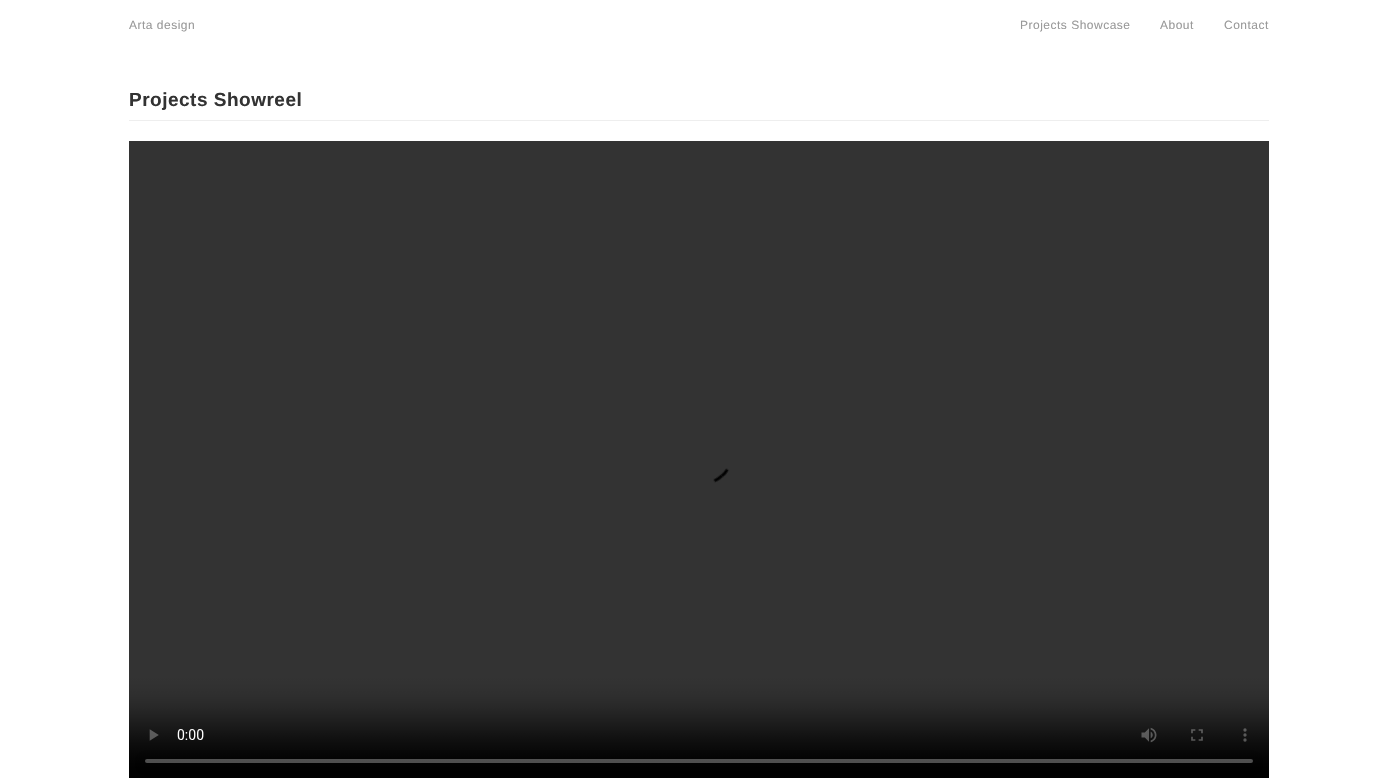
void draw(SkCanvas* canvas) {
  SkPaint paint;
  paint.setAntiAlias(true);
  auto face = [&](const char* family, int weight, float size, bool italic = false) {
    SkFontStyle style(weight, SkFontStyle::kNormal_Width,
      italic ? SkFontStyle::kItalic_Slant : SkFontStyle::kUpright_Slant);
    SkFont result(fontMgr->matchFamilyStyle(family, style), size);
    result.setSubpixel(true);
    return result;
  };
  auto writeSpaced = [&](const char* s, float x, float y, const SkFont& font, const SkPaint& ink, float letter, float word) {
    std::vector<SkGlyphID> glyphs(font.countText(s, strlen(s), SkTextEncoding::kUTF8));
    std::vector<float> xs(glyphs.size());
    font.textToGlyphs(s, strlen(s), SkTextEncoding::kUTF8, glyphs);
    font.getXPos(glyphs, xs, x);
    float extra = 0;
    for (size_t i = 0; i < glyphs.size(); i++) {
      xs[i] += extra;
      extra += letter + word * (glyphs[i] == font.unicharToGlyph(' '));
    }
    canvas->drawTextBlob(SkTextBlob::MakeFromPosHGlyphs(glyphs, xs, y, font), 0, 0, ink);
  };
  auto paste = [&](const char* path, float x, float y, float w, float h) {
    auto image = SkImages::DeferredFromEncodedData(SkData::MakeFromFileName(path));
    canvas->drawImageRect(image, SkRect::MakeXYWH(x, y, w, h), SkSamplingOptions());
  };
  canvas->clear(0xffffffff);
  paint.setColor(0xffeeeeee);
  canvas->drawRect(SkRect::MakeXYWH(129, 120, 1140, 1), paint);
  paste("img/1.png", 129, 141, 1140, 637);
  auto f0 = face("Liberation Sans", 400, 12);
  paint.setColor(0xff999999);
  {
    const struct { const char* s; float x, y; } items[] = {
      {"Arta design", 129, 29},
      {"Projects Showcase", 1020, 29},
      {"About", 1160, 29},
      {"Contact", 1224, 29},
    };
    for (auto [s, x, y] : items) {
      writeSpaced(s, x, y, f0, paint, 0.5f, 0);
    }
  }
  auto f1 = face("Liberation Sans", 700, 19);
  paint.setColor(0xff333333);
  writeSpaced("Projects Showreel", 129, 106, f1, paint, 0.5f, 0);
}
